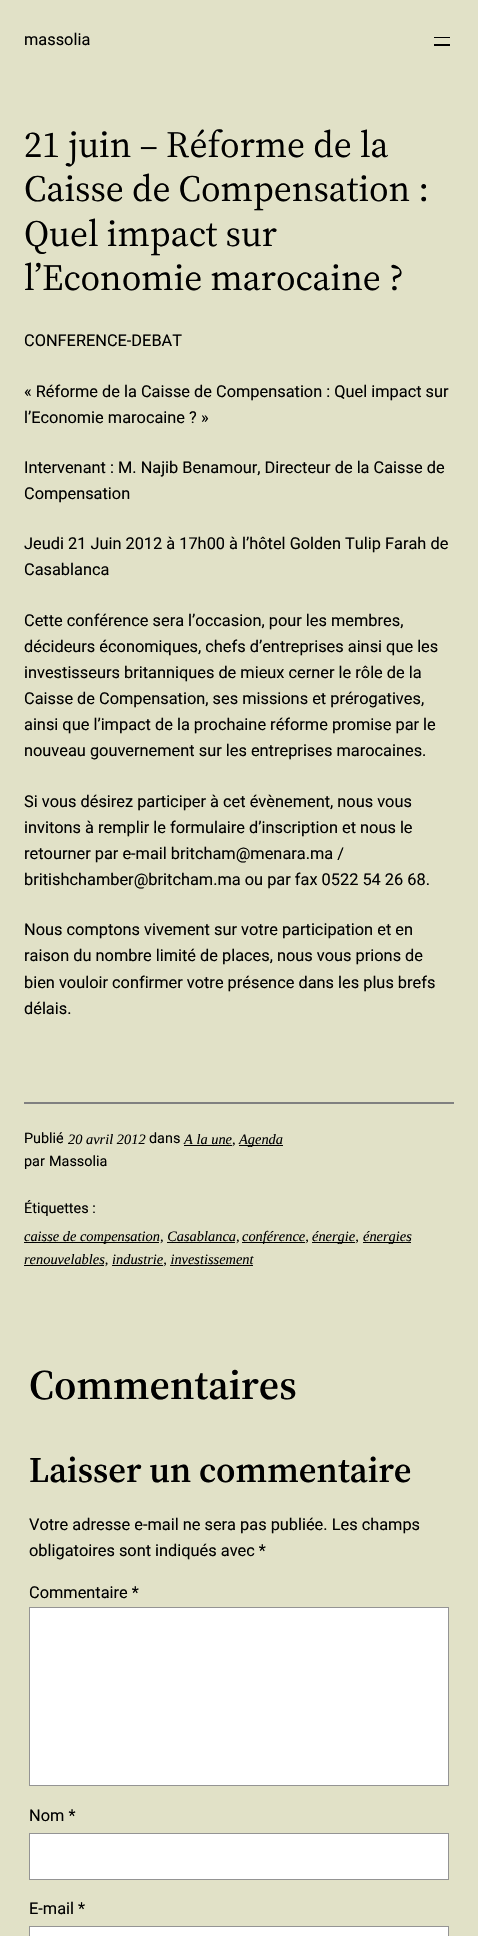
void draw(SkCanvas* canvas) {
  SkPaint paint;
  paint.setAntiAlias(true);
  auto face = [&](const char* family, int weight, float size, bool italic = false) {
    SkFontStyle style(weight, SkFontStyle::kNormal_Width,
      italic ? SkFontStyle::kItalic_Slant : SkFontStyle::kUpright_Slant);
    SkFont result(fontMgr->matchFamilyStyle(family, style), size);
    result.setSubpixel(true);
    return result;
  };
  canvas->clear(0xffe1e1c7);
  {
    const struct { float x, y, w, h; SkColor color; } items[] = {
      {434, 37, 16, 1, 0xff000000},
      {434, 44, 16, 2, 0xff000000},
      {24, 1102, 430, 2, 0xff808080},
      {184, 1145, 48, 1, 0xff000000},
      {239, 1145, 44, 1, 0xff000000},
      {24, 1242, 135, 1, 0xff000000},
      {242, 1242, 63, 1, 0xff000000},
      {312, 1242, 43, 1, 0xff000000},
      {363, 1242, 48, 1, 0xff000000},
      {167, 1242, 68, 1, 0xff000000},
      {24, 1265, 80, 1, 0xff000000},
      {112, 1265, 51, 1, 0xff000000},
      {170, 1265, 83, 1, 0xff000000},
    };
    for (auto [x, y, w, h, color] : items) {
      paint.setColor(color);
      canvas->drawRect(SkRect::MakeXYWH(x, y, w, h), paint);
    }
  }
  paint.setColor(0xffffffff);
  canvas->drawRect(SkRect::MakeXYWH(29.5f, 1607.5f, 419, 178), paint);
  paint.setStroke(true);
  paint.setStrokeWidth(1);
  paint.setColor(0xff949494);
  canvas->drawRect(SkRect::MakeXYWH(29.5f, 1607.5f, 419, 178), paint);
  paint.setStroke(false);
  paint.setColor(0xffffffff);
  canvas->drawRect(SkRect::MakeXYWH(29.5f, 1833.5f, 419, 46), paint);
  paint.setStroke(true);
  paint.setColor(0xff949494);
  canvas->drawRect(SkRect::MakeXYWH(29.5f, 1833.5f, 419, 46), paint);
  paint.setStroke(false);
  paint.setColor(0xffffffff);
  canvas->drawRect(SkRect::MakeXYWH(29.5f, 1926.5f, 419, 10), paint);
  paint.setStroke(true);
  paint.setColor(0xff949494);
  canvas->drawRect(SkRect::MakeXYWH(29.5f, 1926.5f, 419, 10), paint);
  auto f0 = face("Roboto", 400, 16.35f);
  paint.setStroke(false);
  paint.setColor(0xff000000);
  canvas->drawString("massolia", 24, 45, f0, paint);
  auto f1 = face("Source Serif 4", 400, 37);
  {
    const struct { const char* s; float x, y; } items[] = {
      {"21 juin – Réforme de la", 24, 157},
      {"Caisse de Compensation :", 24, 201},
      {"Quel impact sur", 24, 246},
      {"l’Economie marocaine ?", 24, 290},
    };
    for (auto [s, x, y] : items) {
      canvas->drawString(s, x, y, f1, paint);
    }
  }
  {
    const struct { const char* s; float x, y; } items[] = {
      {"CONFERENCE-DEBAT", 24, 346},
      {"« Réforme de la Caisse de Compensation : Quel impact sur", 24, 397},
      {"l’Economie marocaine ? »", 24, 423},
      {"Intervenant : M. Najib Benamour, Directeur de la Caisse de", 24, 473},
      {"Compensation", 24, 499},
      {"Jeudi 21 Juin 2012 à 17h00 à l’hôtel Golden Tulip Farah de", 24, 549},
      {"Casablanca", 24, 575},
      {"Cette conférence sera l’occasion, pour les membres,", 24, 626},
      {"décideurs économiques, chefs d’entreprises ainsi que les", 24, 652},
      {"investisseurs britanniques de mieux cerner le rôle de la", 24, 678},
      {"Caisse de Compensation, ses missions et prérogatives,", 24, 704},
      {"ainsi que l’impact de la prochaine réforme promise par le", 24, 730},
      {"nouveau gouvernement sur les entreprises marocaines.", 24, 756},
      {"Si vous désirez participer à cet évènement, nous vous", 24, 807},
      {"invitons à remplir le formulaire d’inscription et nous le", 24, 833},
      {"retourner par e-mail britcham@menara.ma /", 24, 859},
      {"britishchamber@britcham.ma ou par fax 0522 54 26 68.", 24, 885},
      {"Nous comptons vivement sur votre participation et en", 24, 935},
      {"raison du nombre limité de places, nous vous prions de", 24, 961},
      {"bien vouloir confirmer votre présence dans les plus brefs", 24, 988},
      {"délais.", 24, 1014},
    };
    for (auto [s, x, y] : items) {
      canvas->drawString(s, x, y, f0, paint);
    }
  }
  auto f2 = face("Roboto", 400, 14.4f);
  canvas->drawString("Publié", 24, 1143, f2, paint);
  auto f3 = face("Liberation Serif", 400, 14.4f, true);
  canvas->drawString("20 avril 2012", 68, 1144, f3, paint);
  canvas->drawString("dans", 149, 1143, f2, paint);
  canvas->drawString("A la une,", 184, 1144, f3, paint);
  canvas->drawString("Agenda", 239, 1144, f3, paint);
  {
    const struct { const char* s; float x, y; } items[] = {
      {"par", 24, 1166},
      {"Massolia", 49, 1166},
      {"Étiquettes :", 24, 1213},
    };
    for (auto [s, x, y] : items) {
      canvas->drawString(s, x, y, f2, paint);
    }
  }
  {
    const struct { const char* s; float x, y; } items[] = {
      {"caisse de compensation, Casablanca,", 24, 1241},
      {"conférence,", 242, 1241},
      {"énergie,", 312, 1241},
      {"énergies", 363, 1241},
      {"renouvelables, industrie, investissement", 24, 1264},
    };
    for (auto [s, x, y] : items) {
      canvas->drawString(s, x, y, f3, paint);
    }
  }
  auto f4 = face("Source Serif 4", 600, 42);
  canvas->drawString("Commentaires", 29, 1399, f4, paint);
  auto f5 = face("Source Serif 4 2", 600, 36);
  canvas->drawString("Laisser un commentaire", 29, 1482, f5, paint);
  {
    const struct { const char* s; float x, y; } items[] = {
      {"Votre adresse e-mail ne sera pas publiée. Les champs", 29, 1530},
      {"obligatoires sont indiqués avec *", 29, 1556},
      {"Commentaire *", 29, 1598},
      {"Nom *", 29, 1821},
      {"E-mail *", 29, 1914},
    };
    for (auto [s, x, y] : items) {
      canvas->drawString(s, x, y, f0, paint);
    }
  }
}
